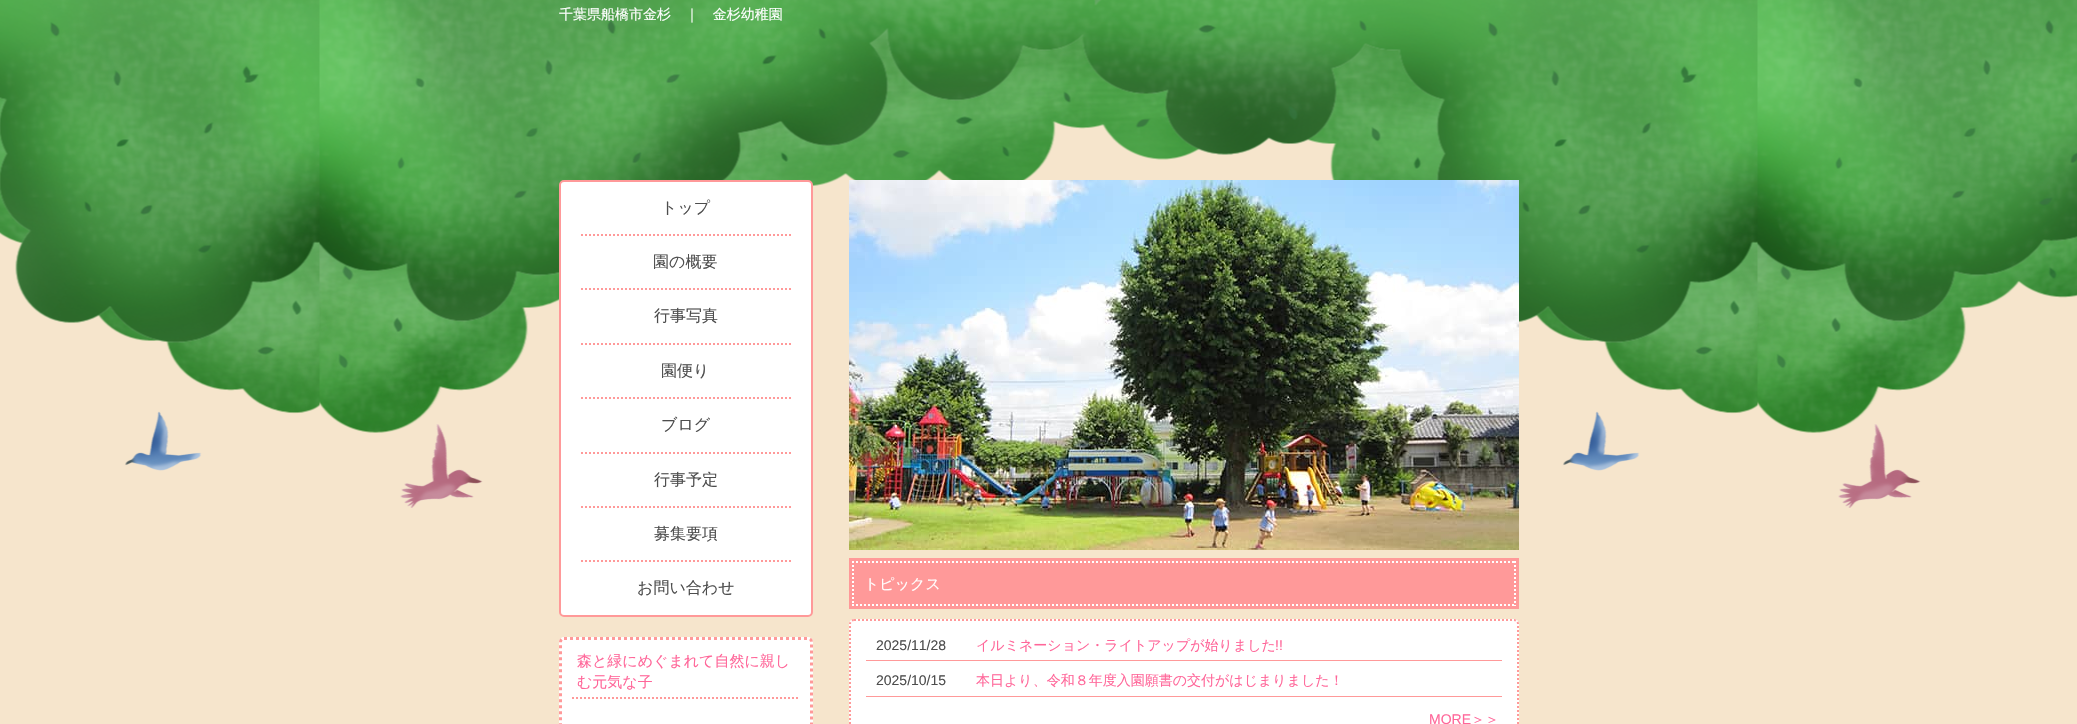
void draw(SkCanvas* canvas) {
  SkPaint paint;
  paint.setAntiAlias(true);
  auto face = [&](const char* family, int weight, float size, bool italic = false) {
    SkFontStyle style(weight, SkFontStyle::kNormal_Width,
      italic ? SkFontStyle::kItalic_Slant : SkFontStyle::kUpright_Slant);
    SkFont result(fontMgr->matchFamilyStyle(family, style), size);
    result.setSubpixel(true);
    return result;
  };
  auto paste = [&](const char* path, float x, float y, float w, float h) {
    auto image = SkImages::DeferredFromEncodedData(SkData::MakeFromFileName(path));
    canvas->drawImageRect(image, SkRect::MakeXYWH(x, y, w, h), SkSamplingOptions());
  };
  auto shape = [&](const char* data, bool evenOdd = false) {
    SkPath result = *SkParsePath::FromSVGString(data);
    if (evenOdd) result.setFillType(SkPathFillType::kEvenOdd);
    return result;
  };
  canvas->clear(0xfff6e5cc);
  paste("img/1.png", 0, 0, 2077, 508);
  paint.setColor(0xffffffff);
  canvas->drawRoundRect(SkRect::MakeXYWH(560, 181, 252, 435), 4, 4, paint);
  paint.setStroke(true);
  paint.setStrokeWidth(2);
  paint.setColor(0xffff9999);
  canvas->drawRoundRect(SkRect::MakeXYWH(560, 181, 252, 435), 4, 4, paint);
  paint.setPathEffect(SkDashPathEffect::Make({{2, 2}}, 0));
  canvas->drawPath(shape("M581 235H791"), paint);
  paint.setPathEffect(nullptr);
  paint.setPathEffect(SkDashPathEffect::Make({{2, 2}}, 0));
  canvas->drawPath(shape("M581 289H791"), paint);
  paint.setPathEffect(nullptr);
  paint.setPathEffect(SkDashPathEffect::Make({{2, 2}}, 0));
  canvas->drawPath(shape("M581 344H791"), paint);
  paint.setPathEffect(nullptr);
  paint.setPathEffect(SkDashPathEffect::Make({{2, 2}}, 0));
  canvas->drawPath(shape("M581 398H791"), paint);
  paint.setPathEffect(nullptr);
  paint.setPathEffect(SkDashPathEffect::Make({{2, 2}}, 0));
  canvas->drawPath(shape("M581 453H791"), paint);
  paint.setPathEffect(nullptr);
  paint.setPathEffect(SkDashPathEffect::Make({{2, 2}}, 0));
  canvas->drawPath(shape("M581 507H791"), paint);
  paint.setPathEffect(nullptr);
  paint.setPathEffect(SkDashPathEffect::Make({{2, 2}}, 0));
  canvas->drawPath(shape("M581 561H791"), paint);
  paint.setPathEffect(nullptr);
  paint.setStroke(false);
  paint.setColor(0xffffffff);
  canvas->drawRoundRect(SkRect::MakeXYWH(559, 637, 254, 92), 5, 5, paint);
  paint.setStroke(true);
  paint.setStrokeWidth(3);
  paint.setColor(0xffff9999);
  paint.setPathEffect(SkDashPathEffect::Make({{3, 3}}, 0));
  canvas->drawPath(shape("M564 638.5H808C810 638.5 811.5 640 811.5 642V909C811.5 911 810 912.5 808 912.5H564C562 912.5 560.5 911 560.5 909V642C560.5 640 562 638.5 564 638.5Z"), paint);
  paint.setPathEffect(nullptr);
  paint.setStrokeWidth(2);
  paint.setPathEffect(SkDashPathEffect::Make({{2, 2}}, 0));
  canvas->drawPath(shape("M572 698H800"), paint);
  paint.setPathEffect(nullptr);
  paste("img/2.png", 849, 180, 670, 370);
  paint.setStroke(false);
  canvas->drawRect(SkRect::MakeXYWH(849, 558, 670, 51), paint);
  paint.setStroke(true);
  paint.setColor(0xffffffff);
  paint.setPathEffect(SkDashPathEffect::Make({{2, 2}}, 0));
  canvas->drawPath(shape("M852 562H1516"), paint);
  paint.setPathEffect(nullptr);
  paint.setPathEffect(SkDashPathEffect::Make({{2, 2}}, 0));
  canvas->drawPath(shape("M1515 561V606"), paint);
  paint.setPathEffect(nullptr);
  paint.setPathEffect(SkDashPathEffect::Make({{2, 2}}, 0));
  canvas->drawPath(shape("M852 605H1516"), paint);
  paint.setPathEffect(nullptr);
  paint.setPathEffect(SkDashPathEffect::Make({{2, 2}}, 0));
  canvas->drawPath(shape("M853 561V606"), paint);
  paint.setPathEffect(nullptr);
  paint.setStroke(false);
  canvas->drawRoundRect(SkRect::MakeXYWH(849, 619, 670, 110), 5, 5, paint);
  paint.setStroke(true);
  paint.setColor(0xffff9999);
  paint.setPathEffect(SkDashPathEffect::Make({{2, 2}}, 0));
  canvas->drawPath(shape("M854 620H1514C1516 620 1518 622 1518 624V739C1518 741 1516 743 1514 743H854C852 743 850 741 850 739V624C850 622 852 620 854 620Z"), paint);
  paint.setPathEffect(nullptr);
  paint.setStroke(false);
  canvas->drawRect(SkRect::MakeXYWH(866, 660, 636, 1), paint);
  canvas->drawRect(SkRect::MakeXYWH(866, 696, 636, 1), paint);
  auto f0 = face("WenQuanYi Zen Hei", 500, 14);
  paint.setColor(0xffffffff);
  canvas->drawString("千葉県船橋市金杉　｜　金杉幼稚園", 559, 19, f0, paint);
  auto f1 = face("WenQuanYi Zen Hei", 500, 16);
  paint.setColor(0xff4d4d4d);
  {
    const struct { const char* s; float x, y; } items[] = {
      {"トップ", 661, 213},
      {"園の概要", 653, 267},
      {"行事写真", 654, 321},
      {"園便り", 661, 376},
      {"ブログ", 661, 430},
      {"行事予定", 654, 485},
      {"募集要項", 654, 539},
      {"お問い合わせ", 637, 593},
    };
    for (auto [s, x, y] : items) {
      canvas->drawString(s, x, y, f1, paint);
    }
  }
  auto f2 = face("WenQuanYi Zen Hei", 500, 15);
  paint.setColor(0xffff6699);
  canvas->drawString("森と緑にめぐまれて自然に親し", 577, 666, f2, paint);
  canvas->drawString("む元気な子", 577, 687, f2, paint);
  paint.setColor(0xffffffff);
  canvas->drawString("トピックス", 864, 589, f2, paint);
  auto f3 = face("Liberation Sans", 400, 14);
  paint.setColor(0xff4d4d4d);
  canvas->drawString("2025/11/28", 876, 650, f3, paint);
  paint.setColor(0xffff6699);
  canvas->drawString("イルミネーション・ライトアップが始りました", 976, 650, f0, paint);
  canvas->drawString("!!", 1275, 650, f3, paint);
  paint.setColor(0xff4d4d4d);
  canvas->drawString("2025/10/15", 876, 685, f3, paint);
  paint.setColor(0xffff6699);
  canvas->drawString("本日より、令和８年度入園願書の交付がはじまりました！", 976, 685, f0, paint);
  canvas->drawString("MORE", 1429, 724, f3, paint);
  canvas->drawString("＞＞", 1471, 724, f0, paint);
}
